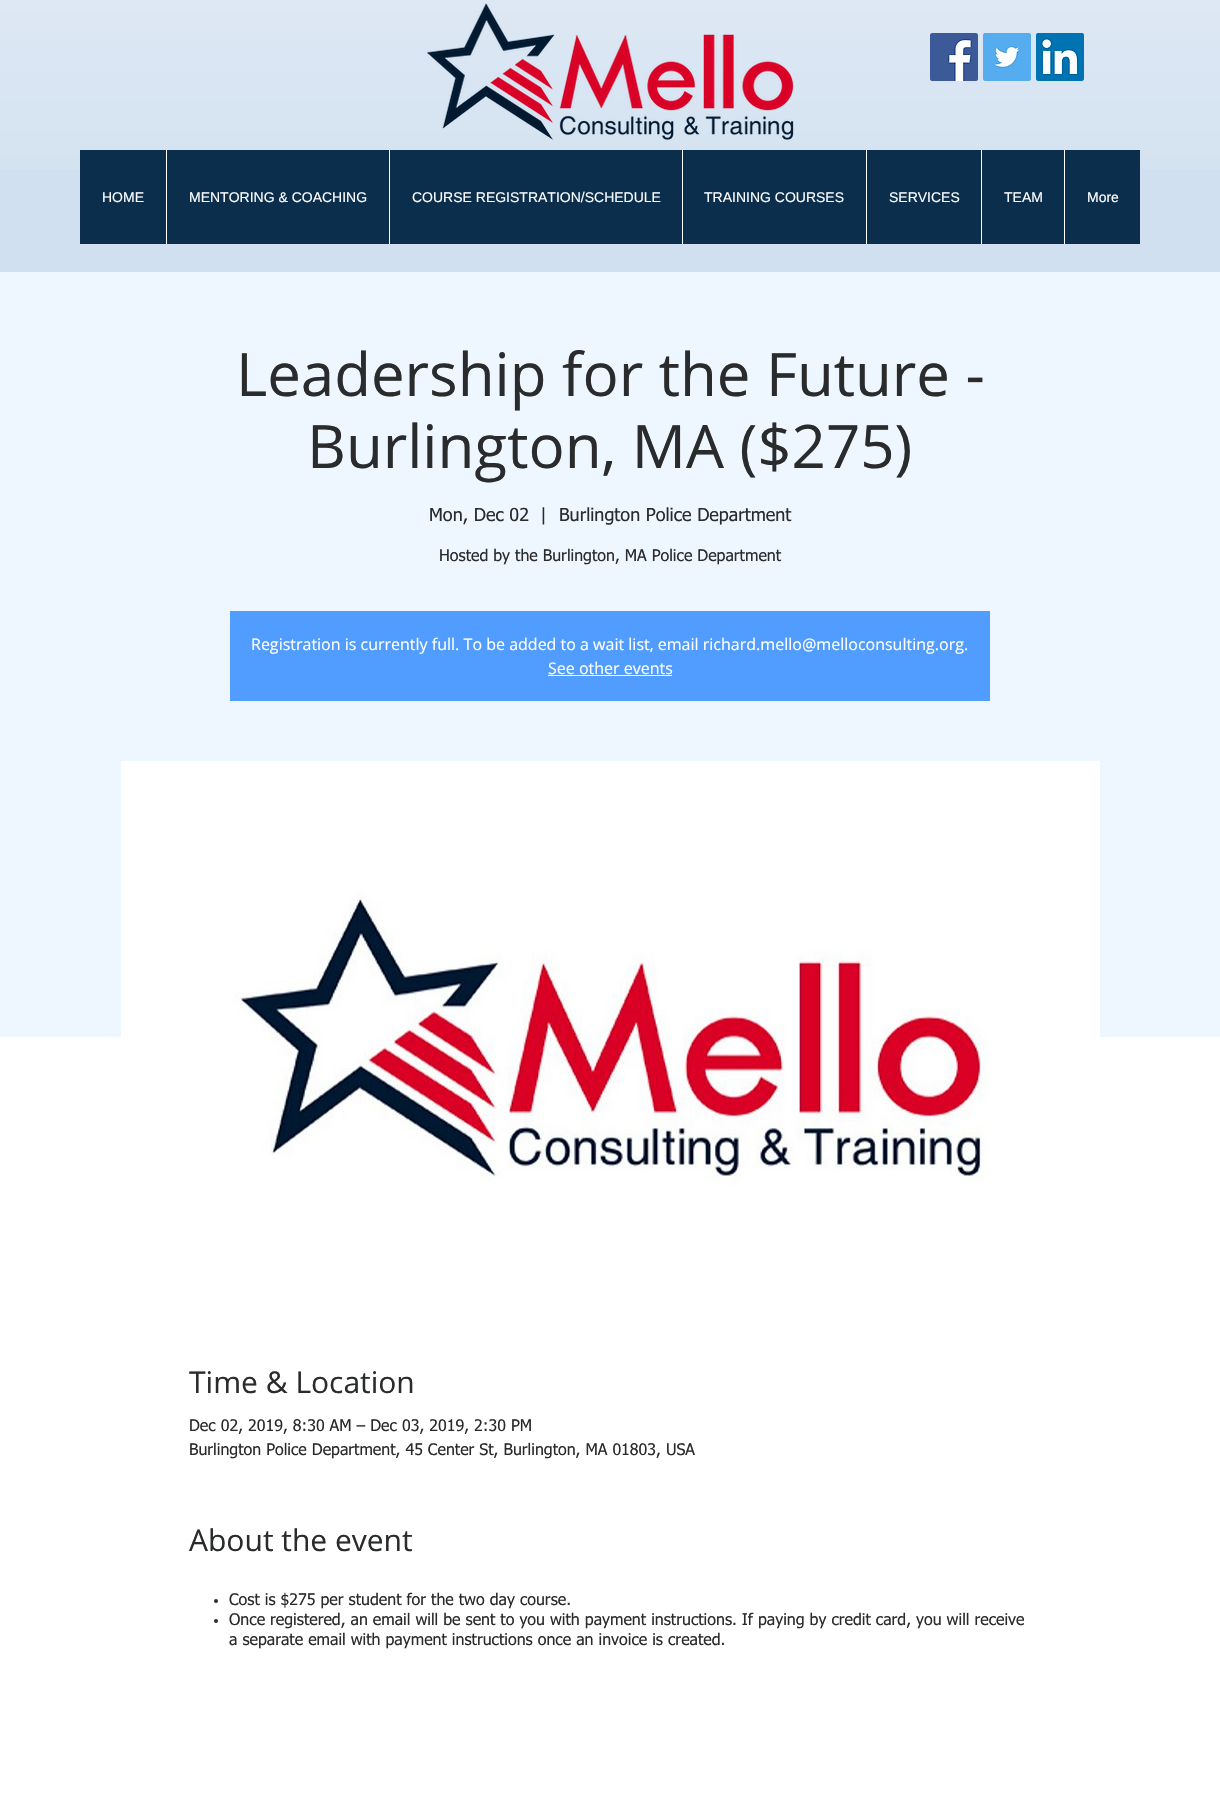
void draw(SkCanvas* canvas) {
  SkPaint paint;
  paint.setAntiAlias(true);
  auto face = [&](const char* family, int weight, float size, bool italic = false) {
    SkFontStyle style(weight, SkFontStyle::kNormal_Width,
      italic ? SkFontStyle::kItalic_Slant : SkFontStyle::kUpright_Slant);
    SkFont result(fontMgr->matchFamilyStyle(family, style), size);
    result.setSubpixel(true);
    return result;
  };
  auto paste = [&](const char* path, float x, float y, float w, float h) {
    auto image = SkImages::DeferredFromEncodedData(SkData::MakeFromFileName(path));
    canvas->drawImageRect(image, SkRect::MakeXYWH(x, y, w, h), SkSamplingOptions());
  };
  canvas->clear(0xffffffff);
  paint.setColor(0xffd1e0f0);
  canvas->drawRect(SkRect::MakeXYWH(0, 0, 1220, 272), paint);
  paste("img/1.png", 0, 0, 1220, 169);
  paste("img/2.png", 427, 3, 367, 137);
  paste("img/3.png", 930, 33, 48, 48);
  paste("img/4.png", 983, 33, 48, 48);
  paste("img/5.png", 1036, 33, 48, 48);
  {
    const struct { float x, y, w, h; SkColor color; } items[] = {
      {80, 150, 1060, 94, 0xff0b2e4d},
      {166, 150, 1, 94, 0xffffffff},
      {389, 150, 1, 94, 0xffffffff},
      {682, 150, 1, 94, 0xffffffff},
      {866, 150, 1, 94, 0xffffffff},
      {981, 150, 1, 94, 0xffffffff},
      {1064, 150, 1, 94, 0xffffffff},
      {0, 272, 1220, 765, 0xffeef6ff},
      {230, 611, 760, 90, 0xff519cff},
      {548, 675, 124, 1, 0xffffffff},
    };
    for (auto [x, y, w, h, color] : items) {
      paint.setColor(color);
      canvas->drawRect(SkRect::MakeXYWH(x, y, w, h), paint);
    }
  }
  paste("img/6.png", 121, 761, 979, 552);
  paint.setColor(0xff2a2b2c);
  canvas->drawCircle(216, 1601, 2, paint);
  canvas->drawCircle(216, 1621, 2, paint);
  auto f0 = face("Liberation Sans", 400, 14);
  paint.setColor(0xffffffff);
  {
    const struct { const char* s; float x, y; } items[] = {
      {"HOME", 102, 202},
      {"MENTORING & COACHING", 189, 202},
      {"COURSE REGISTRATION/SCHEDULE", 412, 202},
      {"TRAINING COURSES", 704, 202},
      {"SERVICES", 889, 202},
      {"TEAM", 1004, 202},
      {"More", 1087, 202},
    };
    for (auto [s, x, y] : items) {
      canvas->drawString(s, x, y, f0, paint);
    }
  }
  auto f1 = face("Open Sans", 400, 60);
  paint.setColor(0xff2a2b2c);
  canvas->drawString("Leadership for the Future -", 236, 396, f1, paint);
  canvas->drawString("Burlington, MA ($275)", 307, 468, f1, paint);
  auto f2 = face("tahoma", 400, 18);
  {
    const struct { const char* s; float x, y; } items[] = {
      {"Mon, Dec 02", 429, 521},
      {"|", 540, 521},
      {"Burlington Police Department", 559, 521},
    };
    for (auto [s, x, y] : items) {
      canvas->drawString(s, x, y, f2, paint);
    }
  }
  auto f3 = face("tahoma", 400, 16);
  canvas->drawString("Hosted by the Burlington, MA Police Department", 439, 561, f3, paint);
  auto f4 = face("Open Sans", 400, 16);
  paint.setColor(0xffffffff);
  canvas->drawString("Registration is currently full. To be added to a wait list, email richard.mello@melloconsulting.org.", 251, 650, f4, paint);
  canvas->drawString("See other events", 548, 674, f4, paint);
  auto f5 = face("Open Sans", 400, 30);
  paint.setColor(0xff2a2b2c);
  canvas->drawString("Time & Location", 189, 1393, f5, paint);
  canvas->drawString("Dec 02, 2019, 8:30 AM – Dec 03, 2019, 2:30 PM", 189, 1431, f3, paint);
  canvas->drawString("Burlington Police Department, 45 Center St, Burlington, MA 01803, USA", 189, 1455, f3, paint);
  canvas->drawString("About the event", 189, 1551, f5, paint);
  {
    const struct { const char* s; float x, y; } items[] = {
      {"Cost is $275 per student for the two day course.", 229, 1605},
      {"Once registered, an email will be sent to you with payment instructions. If paying by credit card, you will receive", 229, 1625},
      {"a separate email with payment instructions once an invoice is created.", 229, 1645},
    };
    for (auto [s, x, y] : items) {
      canvas->drawString(s, x, y, f3, paint);
    }
  }
}
